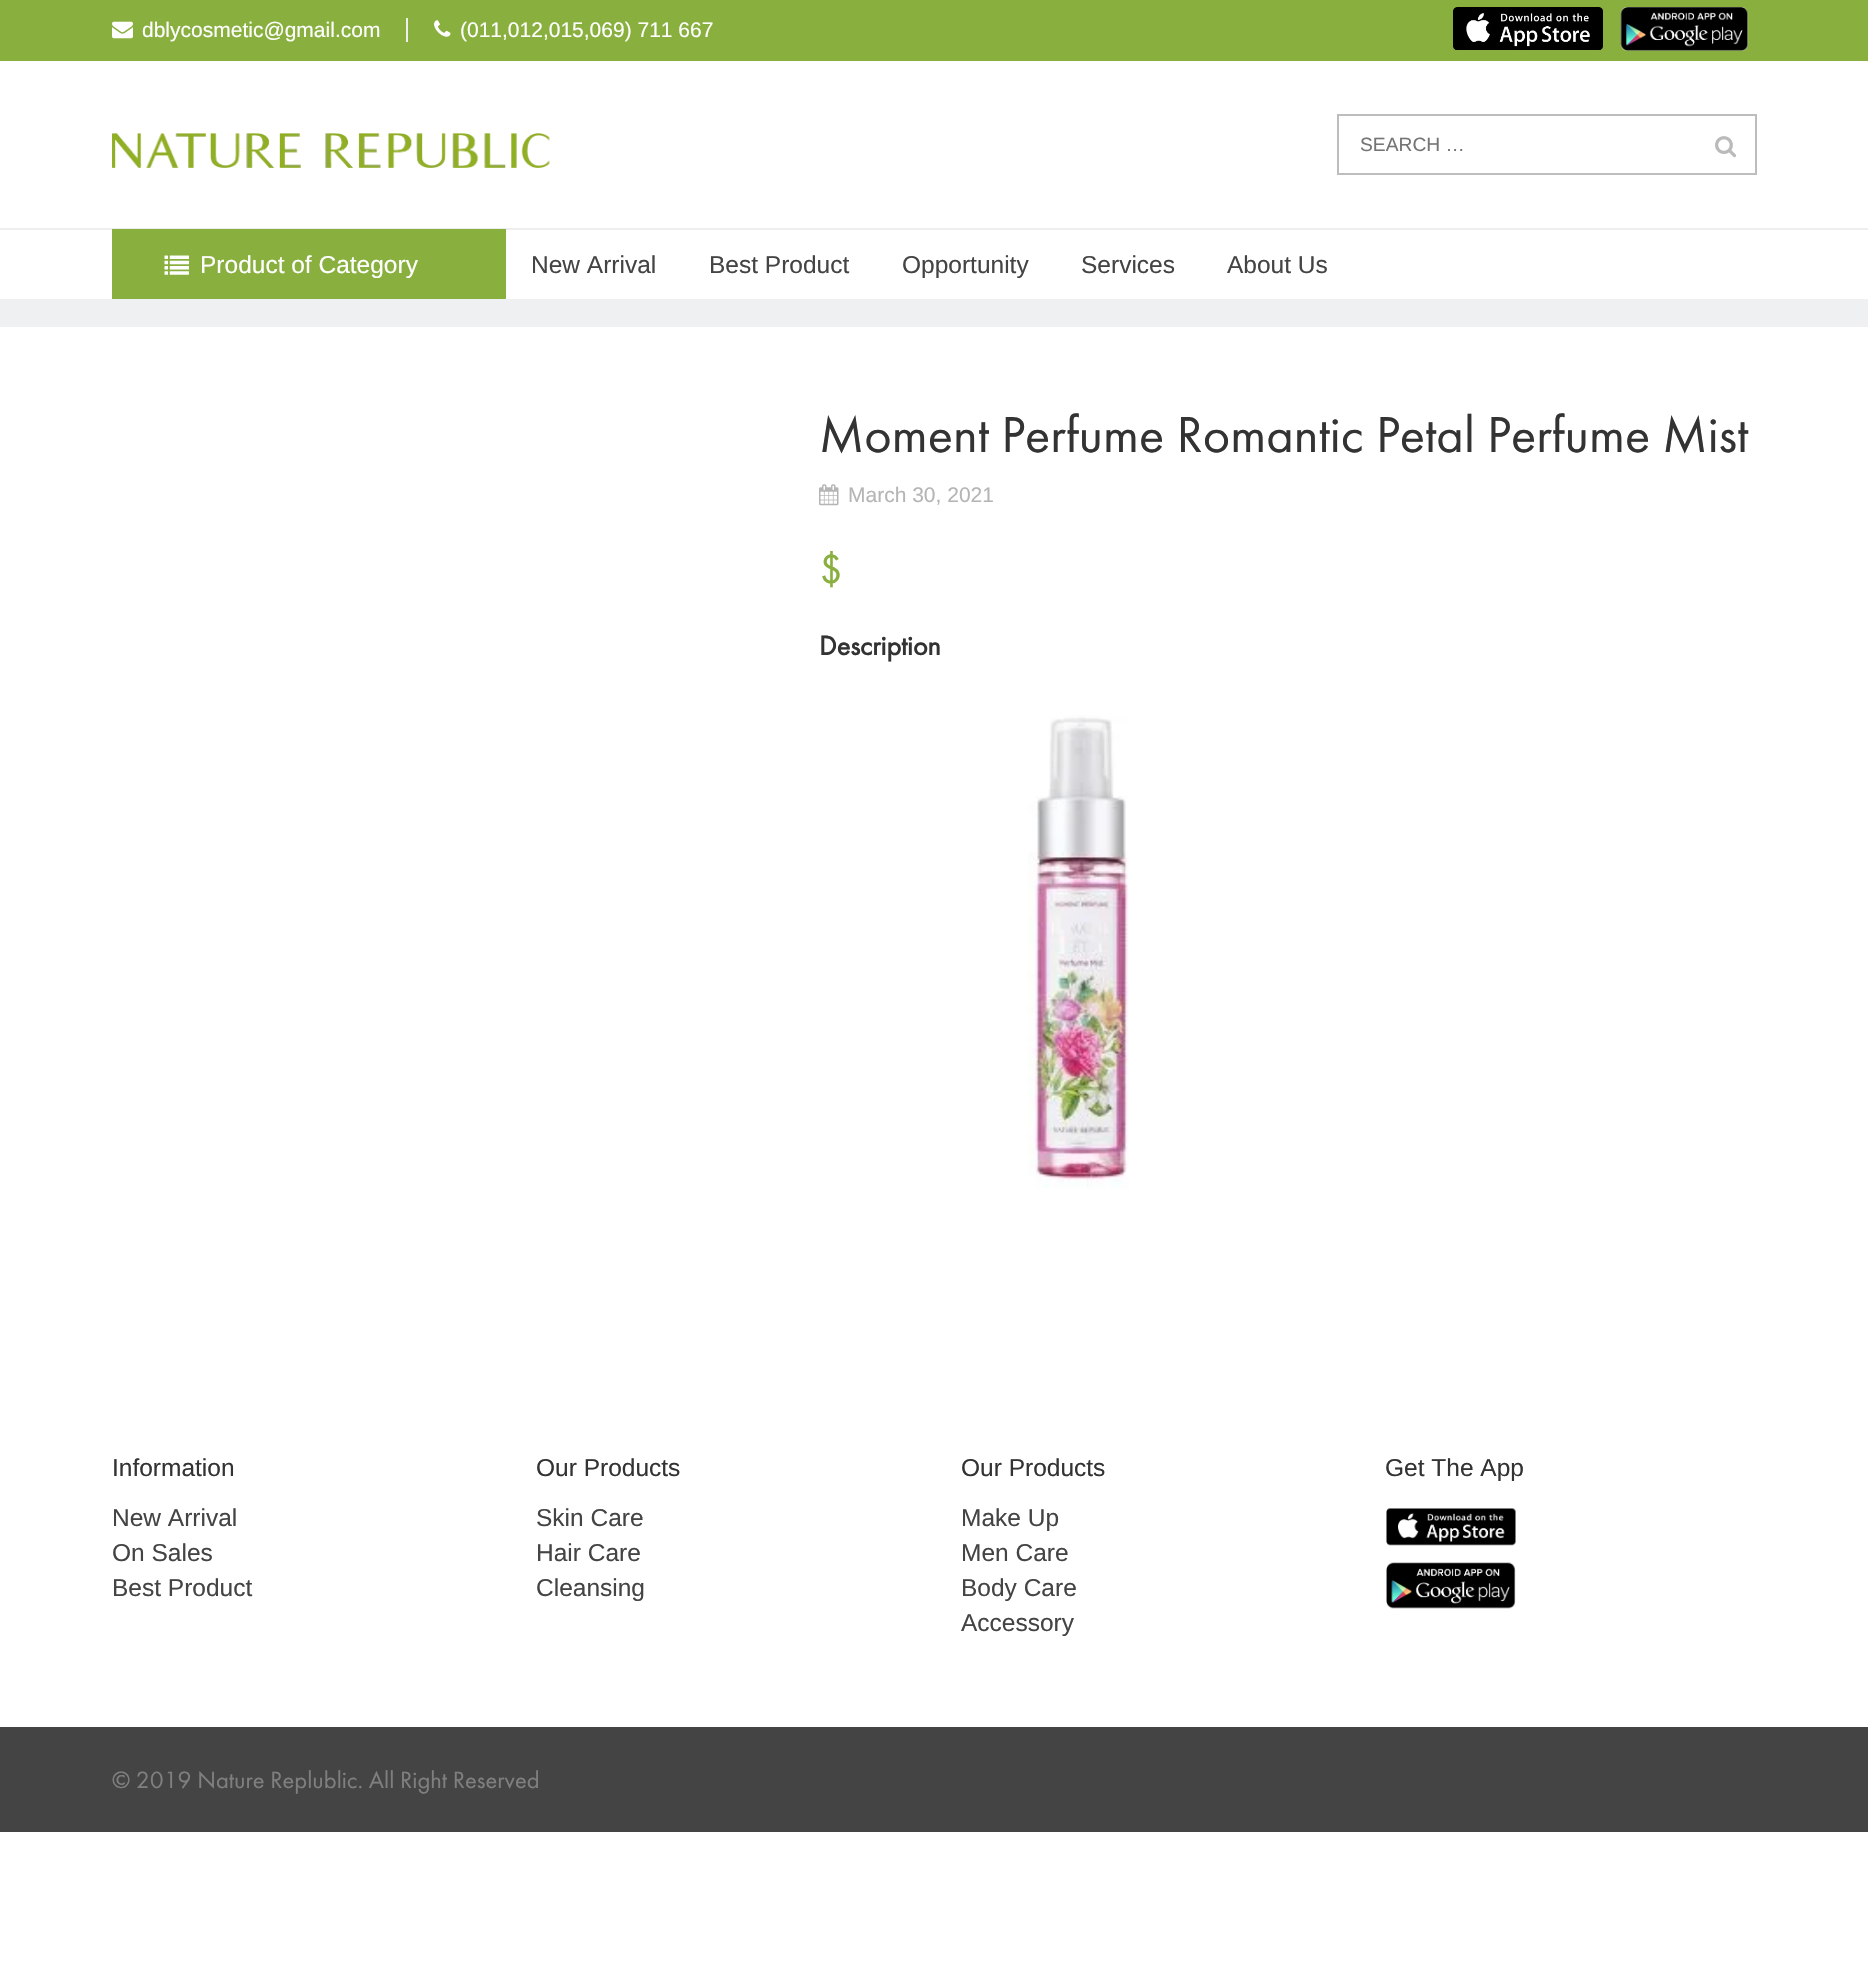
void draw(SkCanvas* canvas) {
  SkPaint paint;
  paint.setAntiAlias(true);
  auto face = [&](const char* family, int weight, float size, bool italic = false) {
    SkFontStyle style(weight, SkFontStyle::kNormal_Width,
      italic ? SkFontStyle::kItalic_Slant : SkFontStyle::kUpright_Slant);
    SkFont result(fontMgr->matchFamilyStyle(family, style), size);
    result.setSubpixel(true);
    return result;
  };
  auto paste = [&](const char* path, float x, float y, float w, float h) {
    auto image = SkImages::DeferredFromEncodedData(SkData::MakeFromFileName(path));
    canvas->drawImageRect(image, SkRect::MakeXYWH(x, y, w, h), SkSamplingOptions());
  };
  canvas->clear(0xffffffff);
  paint.setColor(0xff89b03f);
  canvas->drawRect(SkRect::MakeXYWH(0, 0, 1868, 61), paint);
  paint.setColor(0xffeeeeee);
  canvas->drawRect(SkRect::MakeXYWH(406, 18, 2, 24), paint);
  paste("img/1.png", 112, 21, 21, 18);
  paste("img/2.png", 434, 20, 17, 17);
  paste("img/3.png", 1453, 7, 150, 43);
  paste("img/4.png", 1620, 7, 129, 44);
  paste("img/5.png", 112, 133, 438, 35);
  paint.setStroke(true);
  paint.setStrokeWidth(2);
  paint.setColor(0xffbdbdbd);
  canvas->drawRect(SkRect::MakeXYWH(1338, 115, 418, 59), paint);
  paste("img/6.png", 1715, 136, 22, 22);
  paint.setStroke(false);
  paint.setColor(0xffeeeeee);
  canvas->drawRect(SkRect::MakeXYWH(0, 228, 1868, 2), paint);
  paint.setColor(0xff89b03f);
  canvas->drawRect(SkRect::MakeXYWH(112, 229, 394, 70), paint);
  paste("img/7.png", 164, 255, 25, 20);
  paint.setColor(0xffeef0f2);
  canvas->drawRect(SkRect::MakeXYWH(0, 299, 1868, 28), paint);
  paste("img/8.png", 819, 484, 20, 22);
  paste("img/9.png", 1026, 715, 103, 474);
  paste("img/10.png", 1386, 1508, 130, 38);
  paste("img/11.png", 1386, 1562, 130, 47);
  paint.setColor(0xff444444);
  canvas->drawRect(SkRect::MakeXYWH(0, 1727, 1868, 105), paint);
  auto f0 = face("Liberation Sans", 400, 21);
  paint.setColor(0xffffffff);
  canvas->drawString("dblycosmetic@gmail.com", 142, 37, f0, paint);
  canvas->drawString("(011,012,015,069) 711 667", 460, 37, f0, paint);
  auto f1 = face("Liberation Sans", 400, 19.25f);
  paint.setColor(0xff757575);
  canvas->drawString("SEARCH …", 1360, 151, f1, paint);
  auto f2 = face("Liberation Sans", 400, 24.5f);
  paint.setColor(0xffffffff);
  canvas->drawString("Product of Category", 200, 273, f2, paint);
  paint.setColor(0xff444444);
  {
    const struct { const char* s; float x, y; } items[] = {
      {"New Arrival", 531, 273},
      {"Best Product", 709, 273},
      {"Opportunity", 902, 273},
      {"Services", 1081, 273},
      {"About Us", 1227, 273},
    };
    for (auto [s, x, y] : items) {
      canvas->drawString(s, x, y, f2, paint);
    }
  }
  auto f3 = face("Futura PT", 400, 52.5f);
  paint.setColor(0xff333333);
  canvas->drawString("Moment Perfume Romantic Petal Perfume Mist", 819, 452, f3, paint);
  paint.setColor(0xffb5b5b5);
  canvas->drawString("March 30, 2021", 848, 502, f0, paint);
  auto f4 = face("Futura PT", 400, 42);
  paint.setColor(0xff89af3f);
  canvas->drawString("$", 819, 583, f4, paint);
  auto f5 = face("Futura PT", 700, 28);
  paint.setColor(0xff333333);
  canvas->drawString("Description", 819, 655, f5, paint);
  canvas->drawString("Information", 112, 1476, f2, paint);
  paint.setColor(0xff444444);
  {
    const struct { const char* s; float x, y; } items[] = {
      {"New Arrival", 112, 1526},
      {"On Sales", 112, 1561},
      {"Best Product", 112, 1596},
    };
    for (auto [s, x, y] : items) {
      canvas->drawString(s, x, y, f2, paint);
    }
  }
  paint.setColor(0xff333333);
  canvas->drawString("Our Products", 536, 1476, f2, paint);
  paint.setColor(0xff444444);
  {
    const struct { const char* s; float x, y; } items[] = {
      {"Skin Care", 536, 1526},
      {"Hair Care", 536, 1561},
      {"Cleansing", 536, 1596},
    };
    for (auto [s, x, y] : items) {
      canvas->drawString(s, x, y, f2, paint);
    }
  }
  paint.setColor(0xff333333);
  canvas->drawString("Our Products", 961, 1476, f2, paint);
  paint.setColor(0xff444444);
  {
    const struct { const char* s; float x, y; } items[] = {
      {"Make Up", 961, 1526},
      {"Men Care", 961, 1561},
      {"Body Care", 961, 1596},
      {"Accessory", 961, 1631},
    };
    for (auto [s, x, y] : items) {
      canvas->drawString(s, x, y, f2, paint);
    }
  }
  paint.setColor(0xff333333);
  canvas->drawString("Get The App", 1385, 1476, f2, paint);
  auto f6 = face("Futura PT", 400, 24.5f);
  paint.setColor(0xff7f7f7f);
  canvas->drawString("© 2019 Nature Replublic. All Right Reserved", 112, 1788, f6, paint);
}
